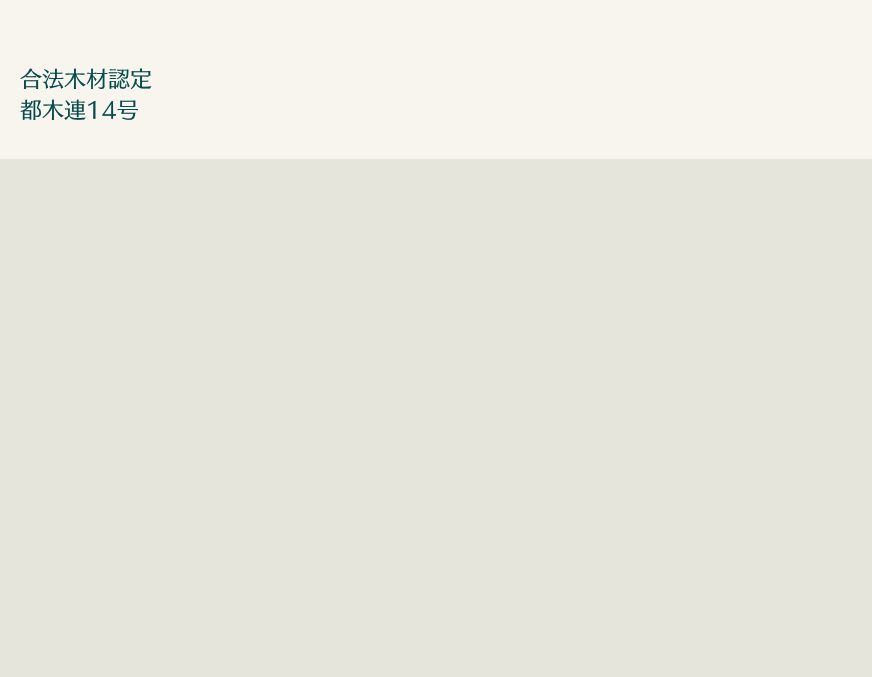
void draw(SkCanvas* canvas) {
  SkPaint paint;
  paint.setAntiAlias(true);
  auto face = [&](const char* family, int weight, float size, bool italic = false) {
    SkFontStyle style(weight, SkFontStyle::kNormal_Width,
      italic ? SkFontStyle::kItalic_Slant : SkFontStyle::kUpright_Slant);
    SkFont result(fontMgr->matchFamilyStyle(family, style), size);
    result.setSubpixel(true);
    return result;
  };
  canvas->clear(0xfff7f5ee);
  paint.setColor(0xffe6e5db);
  canvas->drawRect(SkRect::MakeXYWH(0, 159, 872, 518), paint);
  auto f0 = face("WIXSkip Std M", 500, 22);
  paint.setColor(0xff064b4b);
  canvas->drawString("合法木材認定", 20, 87, f0, paint);
  canvas->drawString("都木連14号", 20, 118, f0, paint);
}
